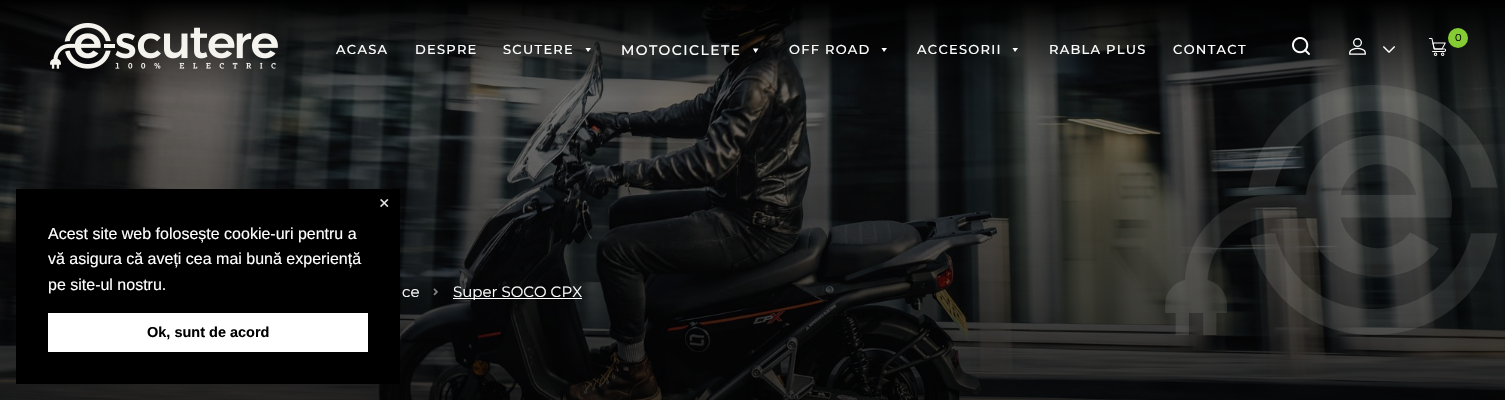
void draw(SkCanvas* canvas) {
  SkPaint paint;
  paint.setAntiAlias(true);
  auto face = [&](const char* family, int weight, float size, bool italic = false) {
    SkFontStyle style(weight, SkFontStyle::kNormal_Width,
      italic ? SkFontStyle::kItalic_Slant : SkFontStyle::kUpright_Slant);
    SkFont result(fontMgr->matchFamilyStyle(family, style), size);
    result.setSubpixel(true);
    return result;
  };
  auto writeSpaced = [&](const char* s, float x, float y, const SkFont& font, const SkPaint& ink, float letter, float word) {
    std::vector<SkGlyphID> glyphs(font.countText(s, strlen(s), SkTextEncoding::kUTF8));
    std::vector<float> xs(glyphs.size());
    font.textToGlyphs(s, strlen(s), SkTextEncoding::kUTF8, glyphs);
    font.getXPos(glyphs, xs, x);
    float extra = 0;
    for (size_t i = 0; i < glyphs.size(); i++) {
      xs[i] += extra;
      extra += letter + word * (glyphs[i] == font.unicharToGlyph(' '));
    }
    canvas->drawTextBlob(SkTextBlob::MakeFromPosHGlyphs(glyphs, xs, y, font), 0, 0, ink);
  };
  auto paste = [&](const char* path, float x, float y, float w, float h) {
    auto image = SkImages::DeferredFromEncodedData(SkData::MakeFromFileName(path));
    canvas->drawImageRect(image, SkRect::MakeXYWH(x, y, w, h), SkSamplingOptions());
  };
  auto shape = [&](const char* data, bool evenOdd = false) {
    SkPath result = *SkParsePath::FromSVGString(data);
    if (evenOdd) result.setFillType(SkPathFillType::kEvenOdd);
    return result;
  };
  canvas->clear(0xffffffff);
  paste("img/6.png", 0, 1, 1505, 399);
  paint.setColor(0xff000000);
  canvas->drawRect(SkRect::MakeXYWH(16, 189, 384, 195), paint);
  paint.setColor(0xffffffff);
  canvas->drawRect(SkRect::MakeXYWH(48, 313, 320, 39), paint);
  paste("img/8.png", 1165, 85, 333, 250);
  {
    const SkColor colors[] = {0x00000000, 0xff000000};
    const float stops[] = {0, 1};
    const SkPoint ends[] = {{753, 99}, {753, 0}};
    paint.setShader(SkGradientShader::MakeLinear(ends, colors, stops, 2, SkTileMode::kClamp));
    paint.setAlpha(255);
  }
  canvas->drawRect(SkRect::MakeXYWH(0, 0, 1505, 97), paint);
  paste("img/1.png", 1292, 37, 18, 18);
  paste("img/2.png", 1349, 38, 17, 17);
  paste("img/3.png", 1383, 46, 12, 7);
  paste("img/4.png", 1428, 38, 19, 18);
  paint.setShader(nullptr);
  paint.setColor(0xff85cb33);
  canvas->drawCircle(1458, 38, 10, paint);
  paste("img/5.png", 50, 23, 228, 46);
  paint.setColor(0xffffffff);
  canvas->drawPath(shape("M591 48L588 52L585.5 48Z"), paint);
  canvas->drawPath(shape("M758.5 48.5L755.5 53L753 48.5Z"), paint);
  canvas->drawPath(shape("M887 48L884 52L881.5 48Z"), paint);
  canvas->drawPath(shape("M1018 48L1015 52L1012.5 48Z"), paint);
  paste("img/7.png", 433, 288, 5, 8);
  canvas->drawRect(SkRect::MakeXYWH(453, 298, 129, 1), paint);
  auto f0 = face("Liberation Sans", 400, 18);
  paint.setColor(0xffe6e6e6);
  canvas->drawString("×", 379, 209, f0, paint);
  auto f1 = face("Liberation Sans", 400, 16);
  paint.setColor(0xffffffff);
  {
    const struct { const char* s; float x, y; } items[] = {
      {"Acest site web folosește cookie-uri pentru a", 48, 239},
      {"vă asigura că aveți cea mai bună experiență", 48, 264},
      {"pe site-ul nostru.", 48, 290},
    };
    for (auto [s, x, y] : items) {
      canvas->drawString(s, x, y, f1, paint);
    }
  }
  auto f2 = face("Liberation Sans", 700, 14.5f);
  paint.setColor(0xff000000);
  canvas->drawString("Ok, sunt de acord", 147, 337, f2, paint);
  auto f3 = face("Montserrat", 400, 10);
  canvas->drawString("0", 1455, 41, f3, paint);
  auto f4 = face("Montserrat", 500, 13);
  paint.setColor(0xffffffff);
  {
    const struct { const char* s; float x, y; } items[] = {
      {"ACASA", 336, 54},
      {"DESPRE", 415, 54},
      {"SCUTERE", 503, 54},
    };
    for (auto [s, x, y] : items) {
      writeSpaced(s, x, y, f4, paint, 1.25f, 0);
    }
  }
  auto f5 = face("Montserrat", 500, 14);
  writeSpaced("MOTOCICLETE", 621, 55, f5, paint, 1.4f, 0);
  {
    const struct { const char* s; float x, y; } items[] = {
      {"OFF ROAD", 789, 54},
      {"ACCESORII", 917, 54},
      {"RABLA PLUS", 1049, 54},
      {"CONTACT", 1173, 54},
    };
    for (auto [s, x, y] : items) {
      writeSpaced(s, x, y, f4, paint, 1.25f, 0);
    }
  }
  auto f6 = face("Montserrat", 400, 15);
  canvas->drawString("ce", 402, 297, f6, paint);
  canvas->drawString("Super SOCO CPX", 453, 297, f6, paint);
}
